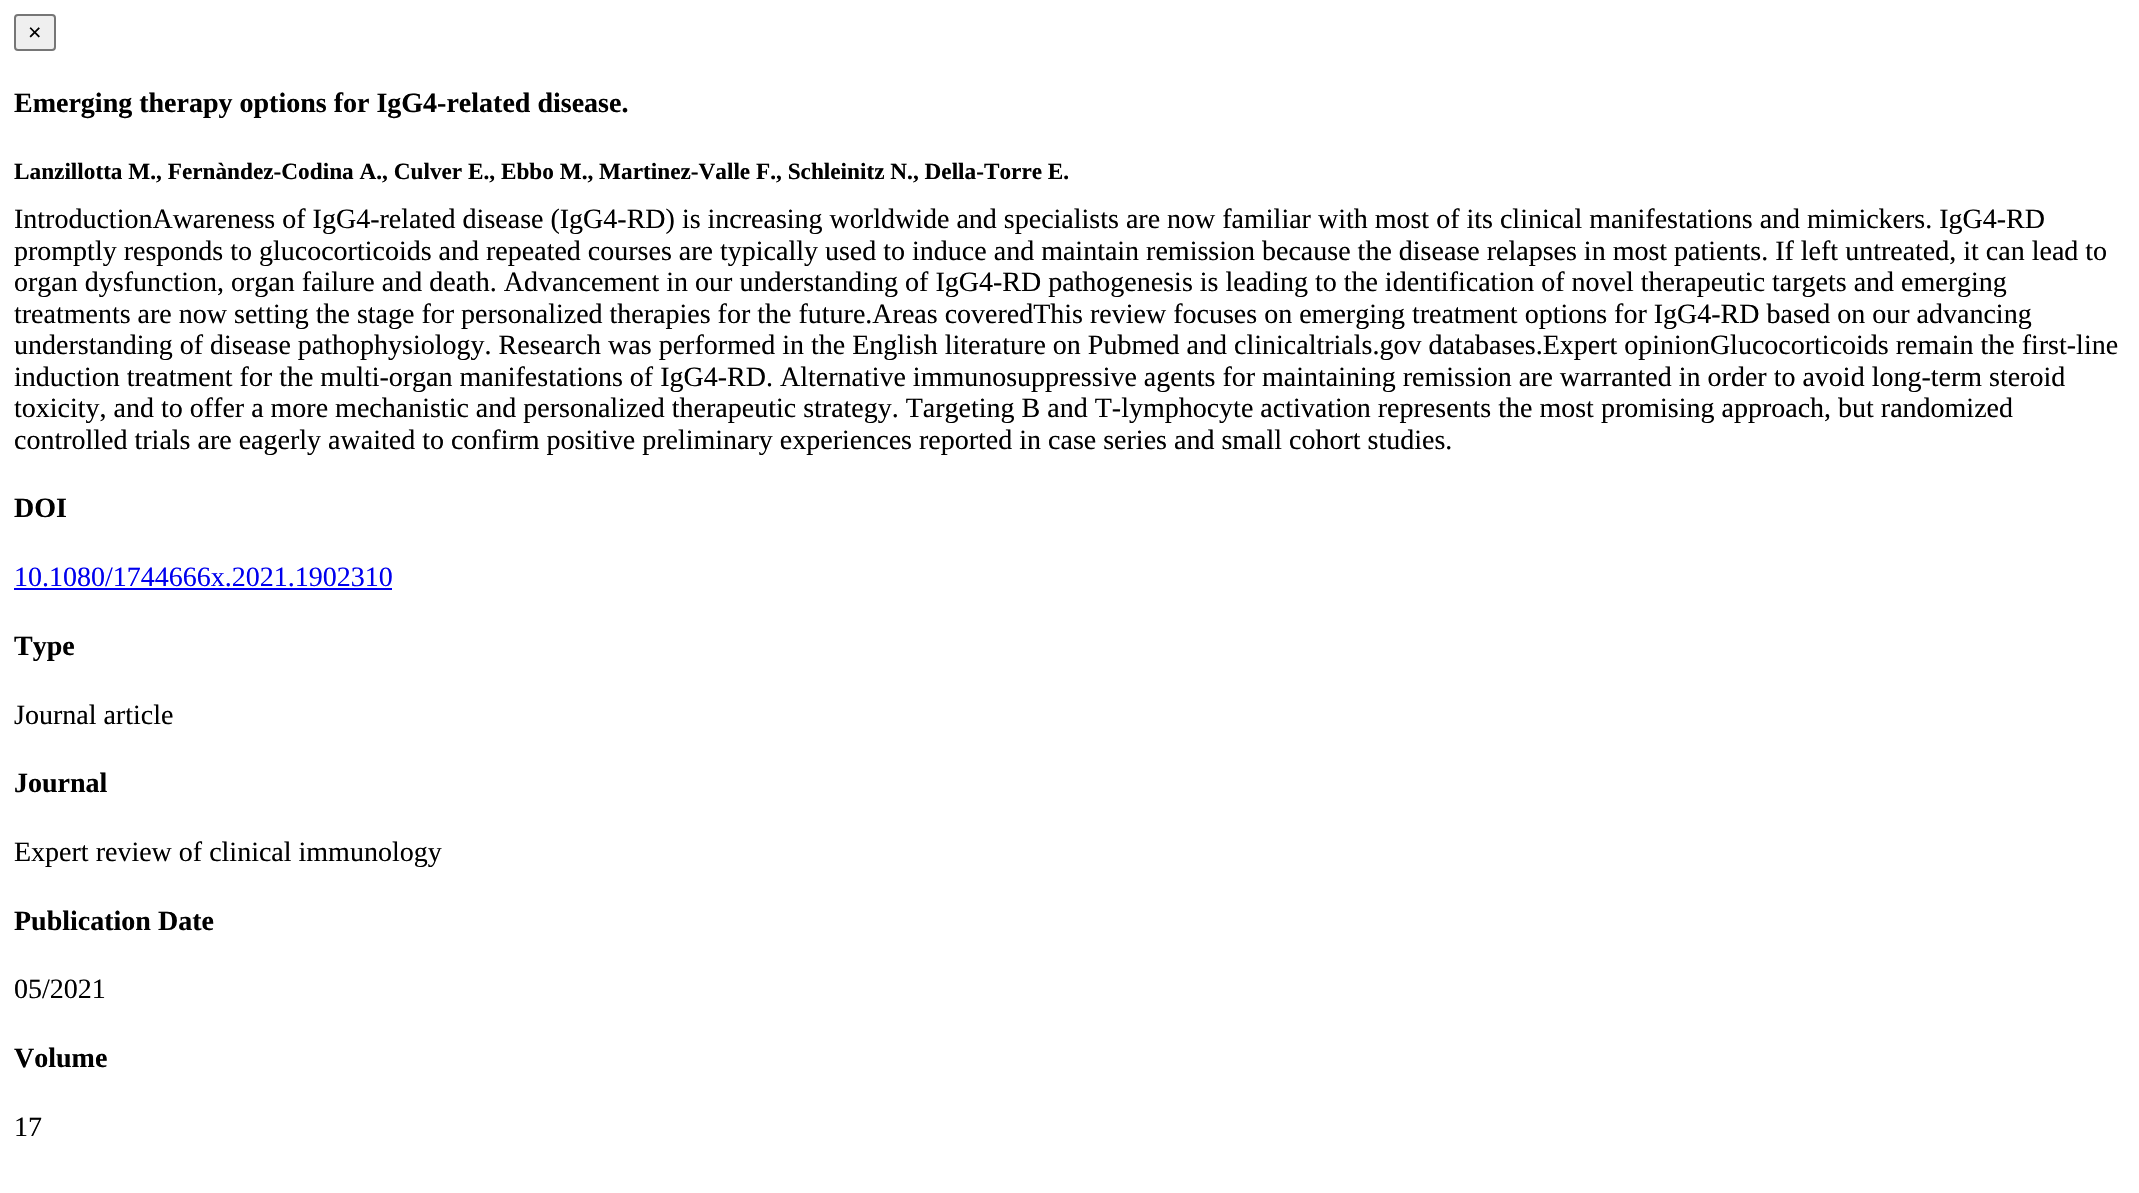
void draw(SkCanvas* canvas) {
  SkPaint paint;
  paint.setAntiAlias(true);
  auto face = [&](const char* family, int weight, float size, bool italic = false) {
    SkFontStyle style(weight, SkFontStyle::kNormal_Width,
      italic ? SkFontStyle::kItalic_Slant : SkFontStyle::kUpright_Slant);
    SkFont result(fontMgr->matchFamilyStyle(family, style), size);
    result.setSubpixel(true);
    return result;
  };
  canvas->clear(0xffffffff);
  paint.setColor(0xffefefef);
  canvas->drawRoundRect(SkRect::MakeXYWH(15, 15, 40, 35), 3, 3, paint);
  paint.setStroke(true);
  paint.setStrokeWidth(2);
  paint.setColor(0xff767676);
  canvas->drawRoundRect(SkRect::MakeXYWH(15, 15, 40, 35), 3, 3, paint);
  paint.setStroke(false);
  paint.setColor(0xff0000ee);
  canvas->drawRect(SkRect::MakeXYWH(14, 588, 378, 2), paint);
  auto f0 = face("Liberation Sans", 400, 23);
  paint.setColor(0xff000000);
  canvas->drawString("×", 28, 40, f0, paint);
  auto f1 = face("Liberation Serif", 700, 28);
  canvas->drawString("Emerging therapy options for IgG4-related disease.", 14, 112, f1, paint);
  auto f2 = face("Liberation Serif", 700, 23.25f);
  canvas->drawString("Lanzillotta M., Fernàndez-Codina A., Culver E., Ebbo M., Martinez-Valle F., Schleinitz N., Della-Torre E.", 14, 179, f2, paint);
  auto f3 = face("Liberation Serif", 400, 28);
  {
    const struct { const char* s; float x, y; } items[] = {
      {"IntroductionAwareness of IgG4-related disease (IgG4-RD) is increasing worldwide and specialists are now familiar with most of its clinical manifestations and mimickers. IgG4-RD", 14, 228},
      {"promptly responds to glucocorticoids and repeated courses are typically used to induce and maintain remission because the disease relapses in most patients. If left untreated, it can lead to", 14, 260},
      {"organ dysfunction, organ failure and death. Advancement in our understanding of IgG4-RD pathogenesis is leading to the identification of novel therapeutic targets and emerging", 14, 291},
      {"treatments are now setting the stage for personalized therapies for the future.Areas coveredThis review focuses on emerging treatment options for IgG4-RD based on our advancing", 14, 323},
      {"understanding of disease pathophysiology. Research was performed in the English literature on Pubmed and clinicaltrials.gov databases.Expert opinionGlucocorticoids remain the first-line", 14, 354},
      {"induction treatment for the multi-organ manifestations of IgG4-RD. Alternative immunosuppressive agents for maintaining remission are warranted in order to avoid long-term steroid", 14, 386},
      {"toxicity, and to offer a more mechanistic and personalized therapeutic strategy. Targeting B and T-lymphocyte activation represents the most promising approach, but randomized", 14, 417},
      {"controlled trials are eagerly awaited to confirm positive preliminary experiences reported in case series and small cohort studies.", 14, 449},
    };
    for (auto [s, x, y] : items) {
      canvas->drawString(s, x, y, f3, paint);
    }
  }
  canvas->drawString("DOI", 14, 517, f1, paint);
  paint.setColor(0xff0000ee);
  canvas->drawString("10.1080/1744666x.2021.1902310", 14, 586, f3, paint);
  paint.setColor(0xff000000);
  canvas->drawString("Type", 14, 655, f1, paint);
  canvas->drawString("Journal article", 14, 724, f3, paint);
  canvas->drawString("Journal", 14, 792, f1, paint);
  canvas->drawString("Expert review of clinical immunology", 14, 861, f3, paint);
  canvas->drawString("Publication Date", 14, 930, f1, paint);
  canvas->drawString("05/2021", 14, 998, f3, paint);
  canvas->drawString("Volume", 14, 1067, f1, paint);
  canvas->drawString("17", 14, 1136, f3, paint);
}
